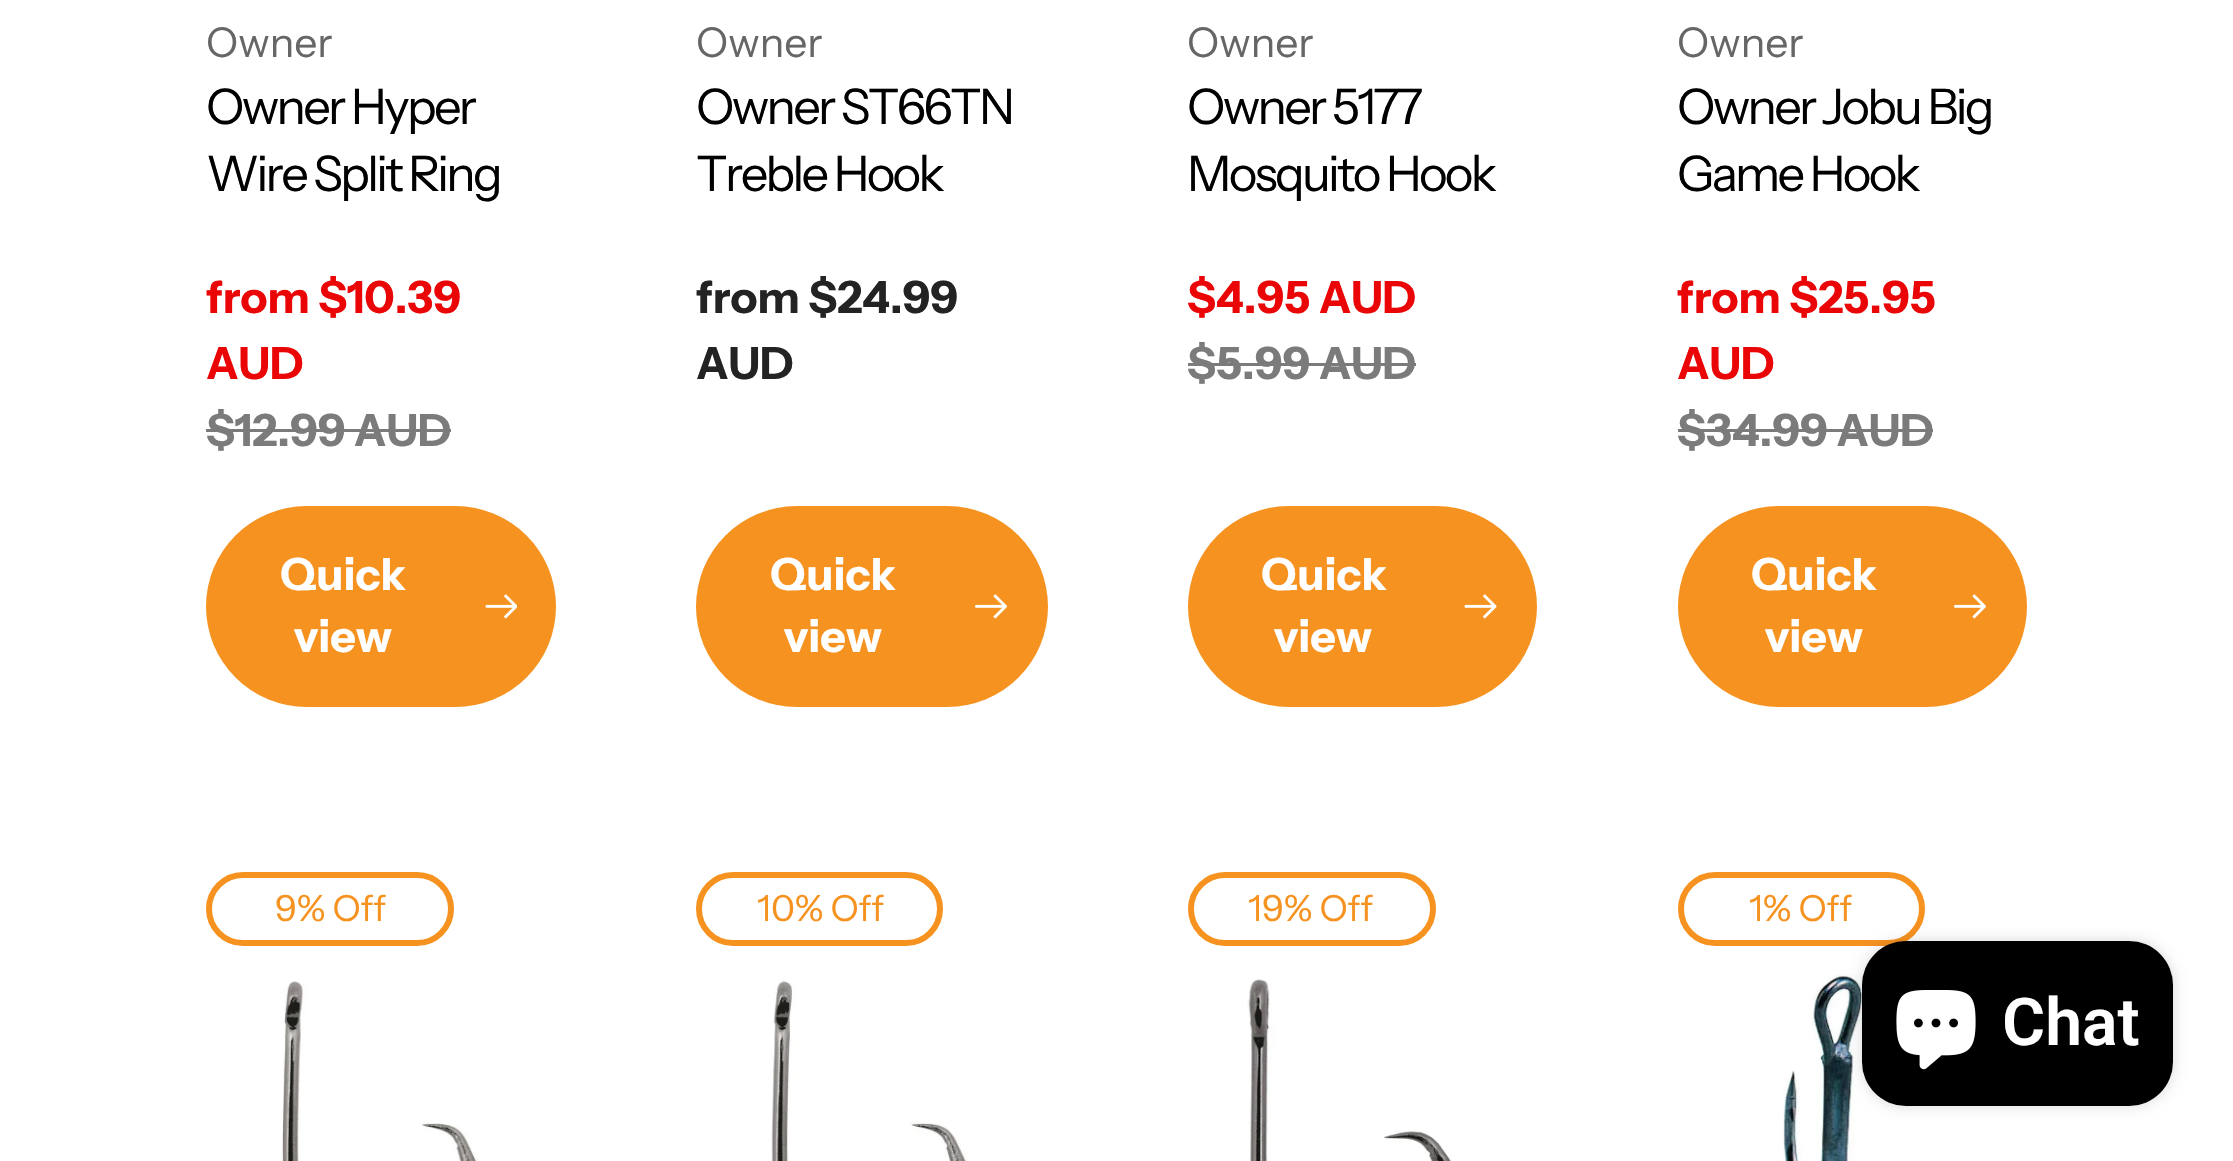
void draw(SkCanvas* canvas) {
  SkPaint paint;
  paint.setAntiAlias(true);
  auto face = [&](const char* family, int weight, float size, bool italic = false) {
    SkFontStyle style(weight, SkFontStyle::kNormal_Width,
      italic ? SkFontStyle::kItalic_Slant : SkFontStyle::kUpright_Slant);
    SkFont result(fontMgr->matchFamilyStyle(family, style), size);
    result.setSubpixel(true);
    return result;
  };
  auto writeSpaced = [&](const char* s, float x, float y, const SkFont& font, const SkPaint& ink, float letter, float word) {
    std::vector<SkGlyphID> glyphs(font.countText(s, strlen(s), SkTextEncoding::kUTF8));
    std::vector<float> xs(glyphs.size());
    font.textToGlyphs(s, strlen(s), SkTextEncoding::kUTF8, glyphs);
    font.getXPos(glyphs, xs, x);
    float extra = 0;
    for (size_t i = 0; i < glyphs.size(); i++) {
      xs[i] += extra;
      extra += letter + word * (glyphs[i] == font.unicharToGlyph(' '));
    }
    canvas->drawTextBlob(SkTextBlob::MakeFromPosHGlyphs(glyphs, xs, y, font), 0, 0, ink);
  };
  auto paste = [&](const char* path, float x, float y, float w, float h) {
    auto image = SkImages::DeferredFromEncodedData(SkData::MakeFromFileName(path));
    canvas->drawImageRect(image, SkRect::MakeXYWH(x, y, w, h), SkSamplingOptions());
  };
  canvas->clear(0xffffffff);
  paint.setColor(0xff7b7b7b);
  canvas->drawRect(SkRect::MakeXYWH(206, 429, 245, 3), paint);
  paint.setColor(0xfff69220);
  canvas->drawRoundRect(SkRect::MakeXYWH(206, 506, 350, 201), 100.5f, 100.5f, paint);
  paste("img/1.png", 485, 594, 32, 25);
  canvas->drawRoundRect(SkRect::MakeXYWH(696, 506, 352, 201), 100.5f, 100.5f, paint);
  paste("img/2.png", 975, 594, 32, 25);
  paint.setColor(0xff7b7b7b);
  canvas->drawRect(SkRect::MakeXYWH(1188, 363, 228, 3), paint);
  paint.setColor(0xfff69220);
  canvas->drawRoundRect(SkRect::MakeXYWH(1188, 506, 349, 201), 100.5f, 100.5f, paint);
  paste("img/3.png", 1464, 594, 33, 25);
  paint.setColor(0xff7b7b7b);
  canvas->drawRect(SkRect::MakeXYWH(1678, 429, 255, 3), paint);
  paint.setColor(0xfff69220);
  canvas->drawRoundRect(SkRect::MakeXYWH(1678, 506, 349, 201), 100.5f, 100.5f, paint);
  paste("img/2.png", 1954, 594, 32, 25);
  paint.setStroke(true);
  paint.setStrokeWidth(6);
  canvas->drawRoundRect(SkRect::MakeXYWH(209, 875, 242, 68), 34, 34, paint);
  paste("img/4.png", 281, 981, 197, 180);
  canvas->drawRoundRect(SkRect::MakeXYWH(699, 875, 241, 68), 34, 34, paint);
  paste("img/5.png", 771, 979, 197, 182);
  canvas->drawRoundRect(SkRect::MakeXYWH(1191, 875, 242, 68), 34, 34, paint);
  paste("img/6.png", 1247, 979, 204, 182);
  canvas->drawRoundRect(SkRect::MakeXYWH(1681, 875, 241, 68), 34, 34, paint);
  paste("img/7.png", 1783, 974, 81, 187);
  paint.setStroke(false);
  paint.setColor(0x26000000);
  paint.setMaskFilter(SkMaskFilter::MakeBlur(kNormal_SkBlurStyle, 7));
  canvas->drawRoundRect(SkRect::MakeXYWH(1862, 941, 311, 165), 44, 44, paint);
  paint.setMaskFilter(nullptr);
  paint.setColor(0xff000000);
  canvas->drawRoundRect(SkRect::MakeXYWH(1862, 941, 311, 165), 44, 44, paint);
  paste("img/8.png", 1896, 990, 80, 80);
  auto f0 = face("Instrument Sans", 400, 41);
  paint.setColor(0xff666666);
  canvas->drawString("Owner", 206, 57, f0, paint);
  auto f1 = face("Instrument Sans", 400, 49);
  paint.setColor(0xff000000);
  writeSpaced("Owner Hyper", 206, 124, f1, paint, -2.75f, 0);
  writeSpaced("Wire Split Ring", 206, 191, f1, paint, -2.75f, 0);
  auto f2 = face("Instrument Sans", 700, 44.5f);
  paint.setColor(0xffea0606);
  canvas->drawString("from $10.39", 206, 313, f2, paint);
  canvas->drawString("AUD", 206, 379, f2, paint);
  paint.setColor(0xff7b7b7b);
  canvas->drawString("$12.99 AUD", 206, 446, f2, paint);
  paint.setColor(0xffffffff);
  canvas->drawString("Quick", 280, 590, f2, paint);
  canvas->drawString("view", 294, 652, f2, paint);
  paint.setColor(0xff666666);
  canvas->drawString("Owner", 696, 57, f0, paint);
  paint.setColor(0xff000000);
  writeSpaced("Owner ST66TN", 696, 124, f1, paint, -2.75f, 0);
  writeSpaced("Treble Hook", 696, 191, f1, paint, -2.75f, 0);
  paint.setColor(0xff232323);
  canvas->drawString("from $24.99", 696, 313, f2, paint);
  canvas->drawString("AUD", 696, 379, f2, paint);
  paint.setColor(0xffffffff);
  canvas->drawString("Quick", 770, 590, f2, paint);
  canvas->drawString("view", 784, 652, f2, paint);
  paint.setColor(0xff666666);
  canvas->drawString("Owner", 1187, 57, f0, paint);
  paint.setColor(0xff000000);
  writeSpaced("Owner 5177", 1187, 124, f1, paint, -2.75f, 0);
  writeSpaced("Mosquito Hook", 1187, 191, f1, paint, -2.75f, 0);
  paint.setColor(0xffea0606);
  canvas->drawString("$4.95 AUD", 1187, 313, f2, paint);
  paint.setColor(0xff7b7b7b);
  canvas->drawString("$5.99 AUD", 1187, 379, f2, paint);
  paint.setColor(0xffffffff);
  canvas->drawString("Quick", 1261, 590, f2, paint);
  canvas->drawString("view", 1274, 652, f2, paint);
  paint.setColor(0xff666666);
  canvas->drawString("Owner", 1677, 57, f0, paint);
  paint.setColor(0xff000000);
  writeSpaced("Owner Jobu Big", 1677, 124, f1, paint, -2.75f, 0);
  writeSpaced("Game Hook", 1677, 191, f1, paint, -2.75f, 0);
  paint.setColor(0xffea0606);
  canvas->drawString("from $25.95", 1677, 313, f2, paint);
  canvas->drawString("AUD", 1677, 379, f2, paint);
  paint.setColor(0xff7b7b7b);
  canvas->drawString("$34.99 AUD", 1677, 446, f2, paint);
  paint.setColor(0xffffffff);
  canvas->drawString("Quick", 1751, 590, f2, paint);
  canvas->drawString("view", 1765, 652, f2, paint);
  auto f3 = face("Instrument Sans", 400, 36);
  paint.setColor(0xfff69220);
  {
    const struct { const char* s; float x, y; } items[] = {
      {"9% Off", 275, 921},
      {"10% Off", 757, 921},
      {"19% Off", 1248, 921},
      {"1% Off", 1749, 921},
    };
    for (auto [s, x, y] : items) {
      canvas->drawString(s, x, y, f3, paint);
    }
  }
  auto f4 = face("Roboto", 600, 66);
  paint.setColor(0xffffffff);
  canvas->drawString("Chat", 2002, 1045, f4, paint);
}
